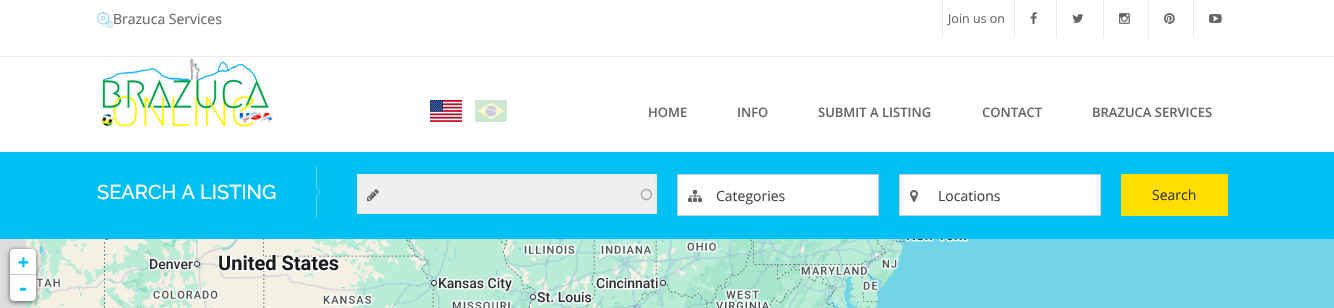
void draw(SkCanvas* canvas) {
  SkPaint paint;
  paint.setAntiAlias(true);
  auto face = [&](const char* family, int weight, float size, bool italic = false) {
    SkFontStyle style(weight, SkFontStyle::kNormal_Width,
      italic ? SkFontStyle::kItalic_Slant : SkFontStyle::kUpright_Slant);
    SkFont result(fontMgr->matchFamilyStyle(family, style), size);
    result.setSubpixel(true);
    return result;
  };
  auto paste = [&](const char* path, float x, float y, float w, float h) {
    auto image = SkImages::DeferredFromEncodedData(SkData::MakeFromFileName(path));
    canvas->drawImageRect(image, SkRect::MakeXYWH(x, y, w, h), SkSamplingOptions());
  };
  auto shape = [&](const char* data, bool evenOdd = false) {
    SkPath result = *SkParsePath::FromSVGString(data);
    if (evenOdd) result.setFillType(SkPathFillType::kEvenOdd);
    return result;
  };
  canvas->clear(0xffffffff);
  paint.setColor(0xffebebeb);
  canvas->drawRect(SkRect::MakeXYWH(0, 56, 1334, 1), paint);
  paste("img/1.png", 97, 12, 16, 16);
  canvas->drawRect(SkRect::MakeXYWH(942, 0, 1, 38), paint);
  canvas->drawRect(SkRect::MakeXYWH(1014, 0, 1, 38), paint);
  paste("img/2.png", 1030, 12, 7, 12);
  canvas->drawRect(SkRect::MakeXYWH(1056, 0, 1, 38), paint);
  paste("img/3.png", 1072, 14, 12, 9);
  canvas->drawRect(SkRect::MakeXYWH(1103, 0, 1, 38), paint);
  paste("img/4.png", 1119, 13, 11, 11);
  canvas->drawRect(SkRect::MakeXYWH(1148, 0, 1, 38), paint);
  paste("img/5.png", 1164, 13, 11, 11);
  canvas->drawRect(SkRect::MakeXYWH(1193, 0, 1, 38), paint);
  paste("img/6.png", 1209, 14, 13, 9);
  paste("img/7.png", 97, 57, 176, 72);
  paste("img/8.png", 430, 100, 32, 22);
  paste("img/9.png", 475, 100, 32, 22);
  paint.setColor(0xff00bff3);
  canvas->drawRect(SkRect::MakeXYWH(0, 152, 1334, 87), paint);
  paint.setColor(0xff6edbf8);
  canvas->drawRect(SkRect::MakeXYWH(316, 167, 1, 50), paint);
  canvas->drawPath(shape("M316 197V187L321 192Z"), paint);
  paint.setColor(0xff00bff3);
  canvas->drawPath(shape("M316 196V188L320 192Z"), paint);
  paint.setColor(0xffefefef);
  canvas->drawRect(SkRect::MakeXYWH(359, 176, 296, 36), paint);
  paste("img/10.png", 640, 188, 13, 13);
  paint.setStroke(true);
  paint.setStrokeWidth(2);
  paint.setColor(0xffeaeaea);
  canvas->drawRect(SkRect::MakeXYWH(358, 175, 298, 38), paint);
  paste("img/11.png", 367, 189, 12, 12);
  paint.setStroke(false);
  paint.setColor(0xffffffff);
  canvas->drawRect(SkRect::MakeXYWH(678, 175, 178, 40), paint);
  paint.setStroke(true);
  paint.setStrokeWidth(1);
  paint.setColor(0xffcccccc);
  canvas->drawRect(SkRect::MakeXYWH(677.5f, 174.5f, 201, 41), paint);
  paste("img/12.png", 688, 190, 14, 12);
  paint.setStroke(false);
  paint.setColor(0xffffffff);
  canvas->drawRect(SkRect::MakeXYWH(856, 175, 22, 40), paint);
  canvas->drawRect(SkRect::MakeXYWH(900, 175, 178, 40), paint);
  paint.setStroke(true);
  paint.setColor(0xffcccccc);
  canvas->drawRect(SkRect::MakeXYWH(899.5f, 174.5f, 201, 41), paint);
  paste("img/13.png", 910, 190, 8, 12);
  paint.setStroke(false);
  {
    const struct { float x, y, w, h; SkColor color; } items[] = {
      {1078, 175, 22, 40, 0xffffffff},
      {1121, 174, 107, 42, 0xffffde00},
      {0, 239, 26, 69, 0xffdddddd},
    };
    for (auto [x, y, w, h, color] : items) {
      paint.setColor(color);
      canvas->drawRect(SkRect::MakeXYWH(x, y, w, h), paint);
    }
  }
  paste("img/14.png", 26, 239, 256, 69);
  paint.setColor(0xa6000000);
  paint.setMaskFilter(SkMaskFilter::MakeBlur(kNormal_SkBlurStyle, 2.5f));
  canvas->drawRoundRect(SkRect::MakeXYWH(10, 250, 26, 52), 4, 4, paint);
  paint.setMaskFilter(nullptr);
  paint.setColor(0xffffffff);
  canvas->drawPath(shape("M14 249H32C34 249 36 251 36 253V275H10V253C10 251 12 249 14 249Z"), paint);
  paint.setColor(0xffcccccc);
  canvas->drawRect(SkRect::MakeXYWH(10, 274, 26, 1), paint);
  paint.setColor(0xffffffff);
  canvas->drawPath(shape("M10 275H36V297C36 299 34 301 32 301H14C12 301 10 299 10 297Z"), paint);
  paste("img/15.png", 282, 239, 256, 69);
  paste("img/16.png", 538, 239, 256, 69);
  paste("img/17.png", 794, 239, 256, 69);
  paint.setColor(0xff72d4e8);
  canvas->drawRect(SkRect::MakeXYWH(1050, 239, 284, 69), paint);
  auto f0 = face("Open Sans", 400, 14);
  paint.setColor(0xff666666);
  canvas->drawString("Brazuca Services", 113, 24, f0, paint);
  auto f1 = face("Open Sans", 400, 12.5f);
  canvas->drawString("Join us on", 948, 23, f1, paint);
  auto f2 = face("Open Sans", 600, 13);
  {
    const struct { const char* s; float x, y; } items[] = {
      {"HOME", 648, 117},
      {"INFO", 737, 117},
      {"SUBMIT A LISTING", 818, 117},
      {"CONTACT", 982, 117},
      {"BRAZUCA SERVICES", 1092, 117},
    };
    for (auto [s, x, y] : items) {
      canvas->drawString(s, x, y, f2, paint);
    }
  }
  auto f3 = face("Raleway", 500, 20);
  paint.setColor(0xffffffff);
  canvas->drawString("SEARCH A LISTING", 97, 199, f3, paint);
  paint.setColor(0xff444444);
  canvas->drawString("Categories", 716, 201, f0, paint);
  canvas->drawString("Locations", 938, 201, f0, paint);
  paint.setColor(0xff333333);
  canvas->drawString("Search", 1152, 200, f0, paint);
  auto f4 = face("DejaVu Sans Mono", 700, 18);
  paint.setColor(0xff00bff3);
  canvas->drawString("+", 18, 268, f4, paint);
  auto f5 = face("DejaVu Sans Mono", 700, 20);
  canvas->drawString("-", 17, 295, f5, paint);
}
